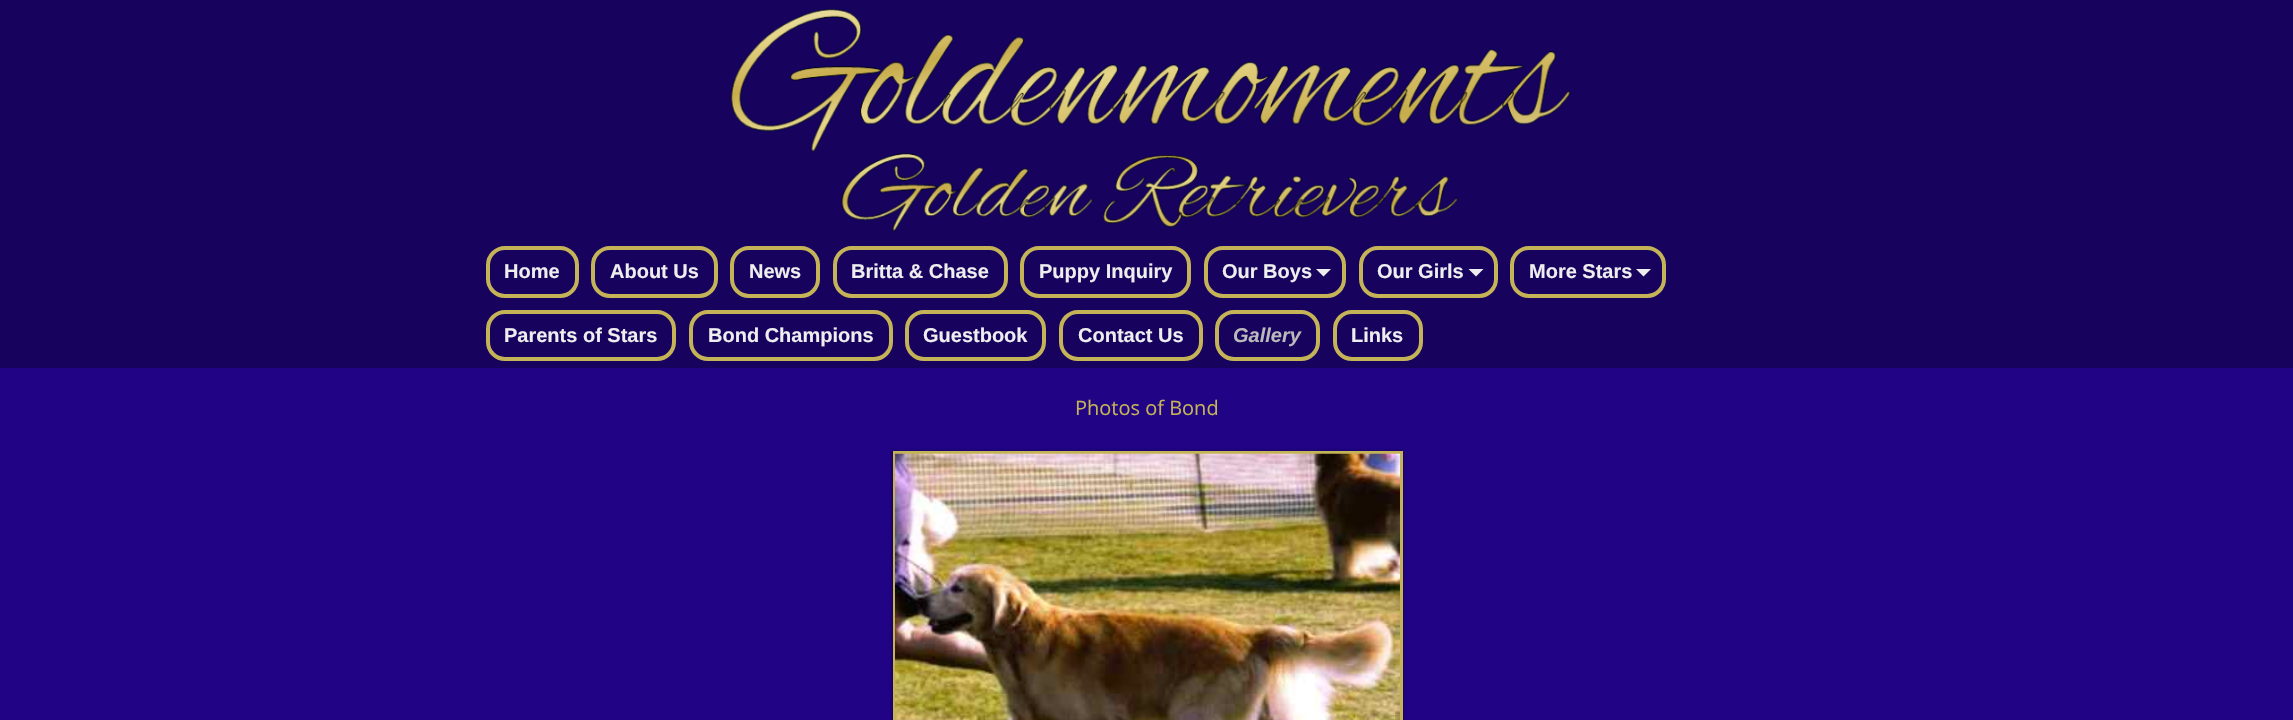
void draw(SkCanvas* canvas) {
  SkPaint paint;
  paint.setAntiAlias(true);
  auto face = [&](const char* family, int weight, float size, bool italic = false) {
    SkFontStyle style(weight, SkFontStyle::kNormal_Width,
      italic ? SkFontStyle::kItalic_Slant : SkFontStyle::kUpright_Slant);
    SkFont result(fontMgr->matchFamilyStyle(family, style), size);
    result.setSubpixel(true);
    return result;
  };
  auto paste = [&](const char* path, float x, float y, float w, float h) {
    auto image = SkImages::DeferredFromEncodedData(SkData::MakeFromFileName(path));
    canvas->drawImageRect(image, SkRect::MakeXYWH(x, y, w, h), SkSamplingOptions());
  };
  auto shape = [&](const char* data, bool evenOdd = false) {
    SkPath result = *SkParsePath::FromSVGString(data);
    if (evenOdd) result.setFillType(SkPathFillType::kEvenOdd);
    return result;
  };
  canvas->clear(0xff210385);
  paint.setColor(0xff17025e);
  canvas->drawRect(SkRect::MakeXYWH(0, 0, 2293, 368), paint);
  paste("img/1.png", 730, 8, 841, 224);
  paint.setStroke(true);
  paint.setStrokeWidth(4);
  paint.setColor(0xffc5b358);
  canvas->drawRoundRect(SkRect::MakeXYWH(488, 248, 89, 48), 17, 17, paint);
  canvas->drawRoundRect(SkRect::MakeXYWH(593, 248, 123, 48), 17, 17, paint);
  canvas->drawRoundRect(SkRect::MakeXYWH(732, 248, 86, 48), 17, 17, paint);
  canvas->drawRoundRect(SkRect::MakeXYWH(835, 248, 171, 48), 17, 17, paint);
  canvas->drawRoundRect(SkRect::MakeXYWH(1022, 248, 167, 48), 17, 17, paint);
  canvas->drawRoundRect(SkRect::MakeXYWH(1206, 248, 138, 48), 17, 17, paint);
  paint.setStroke(false);
  paint.setColor(0xffeeeeee);
  canvas->drawPath(shape("M1316 269H1331L1323.5 276.5Z"), paint);
  paint.setStroke(true);
  paint.setColor(0xffc5b358);
  canvas->drawRoundRect(SkRect::MakeXYWH(1361, 248, 135, 48), 17, 17, paint);
  paint.setStroke(false);
  paint.setColor(0xffeeeeee);
  canvas->drawPath(shape("M1468.5 269H1483.5L1476 276.5Z"), paint);
  paint.setStroke(true);
  paint.setColor(0xffc5b358);
  canvas->drawRoundRect(SkRect::MakeXYWH(1512, 248, 152, 48), 17, 17, paint);
  paint.setStroke(false);
  paint.setColor(0xffeeeeee);
  canvas->drawPath(shape("M1636 269H1651L1643.5 276.5Z"), paint);
  paint.setStroke(true);
  paint.setColor(0xffc5b358);
  canvas->drawRoundRect(SkRect::MakeXYWH(488, 312, 186, 47), 17, 17, paint);
  canvas->drawRoundRect(SkRect::MakeXYWH(691, 312, 200, 47), 17, 17, paint);
  canvas->drawRoundRect(SkRect::MakeXYWH(907, 312, 137, 47), 17, 17, paint);
  canvas->drawRoundRect(SkRect::MakeXYWH(1061, 312, 140, 47), 17, 17, paint);
  canvas->drawRoundRect(SkRect::MakeXYWH(1217, 312, 101, 47), 17, 17, paint);
  canvas->drawRoundRect(SkRect::MakeXYWH(1335, 312, 86, 47), 17, 17, paint);
  paint.setStroke(false);
  paint.setColor(0x40000000);
  paint.setMaskFilter(SkMaskFilter::MakeBlur(kNormal_SkBlurStyle, 1));
  canvas->drawRect(SkRect::MakeXYWH(891, 450, 513, 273), paint);
  paint.setMaskFilter(nullptr);
  paint.setColor(0xffc5b358);
  canvas->drawRect(SkRect::MakeXYWH(893, 451, 510, 269), paint);
  paste("img/2.png", 895, 453, 505, 267);
  auto f0 = face("Liberation Sans", 700, 20);
  paint.setColor(0xffeeeeee);
  {
    const struct { const char* s; float x, y; } items[] = {
      {"Home", 504, 278},
      {"About Us", 610, 278},
      {"News", 749, 278},
      {"Britta & Chase", 851, 278},
      {"Puppy Inquiry", 1039, 278},
      {"Our Boys", 1222, 278},
      {"Our Girls", 1377, 278},
      {"More Stars", 1529, 278},
      {"Parents of Stars", 504, 342},
      {"Bond Champions", 708, 342},
      {"Guestbook", 923, 342},
      {"Contact Us", 1078, 342},
    };
    for (auto [s, x, y] : items) {
      canvas->drawString(s, x, y, f0, paint);
    }
  }
  auto f1 = face("Liberation Sans", 700, 20, true);
  paint.setColor(0xffbababa);
  canvas->drawString("Gallery", 1233, 342, f1, paint);
  paint.setColor(0xffeeeeee);
  canvas->drawString("Links", 1351, 342, f0, paint);
  auto f2 = face("Open Sans", 400, 20);
  paint.setColor(0xffc5b358);
  canvas->drawString("Photos of Bond", 1075, 415, f2, paint);
}
